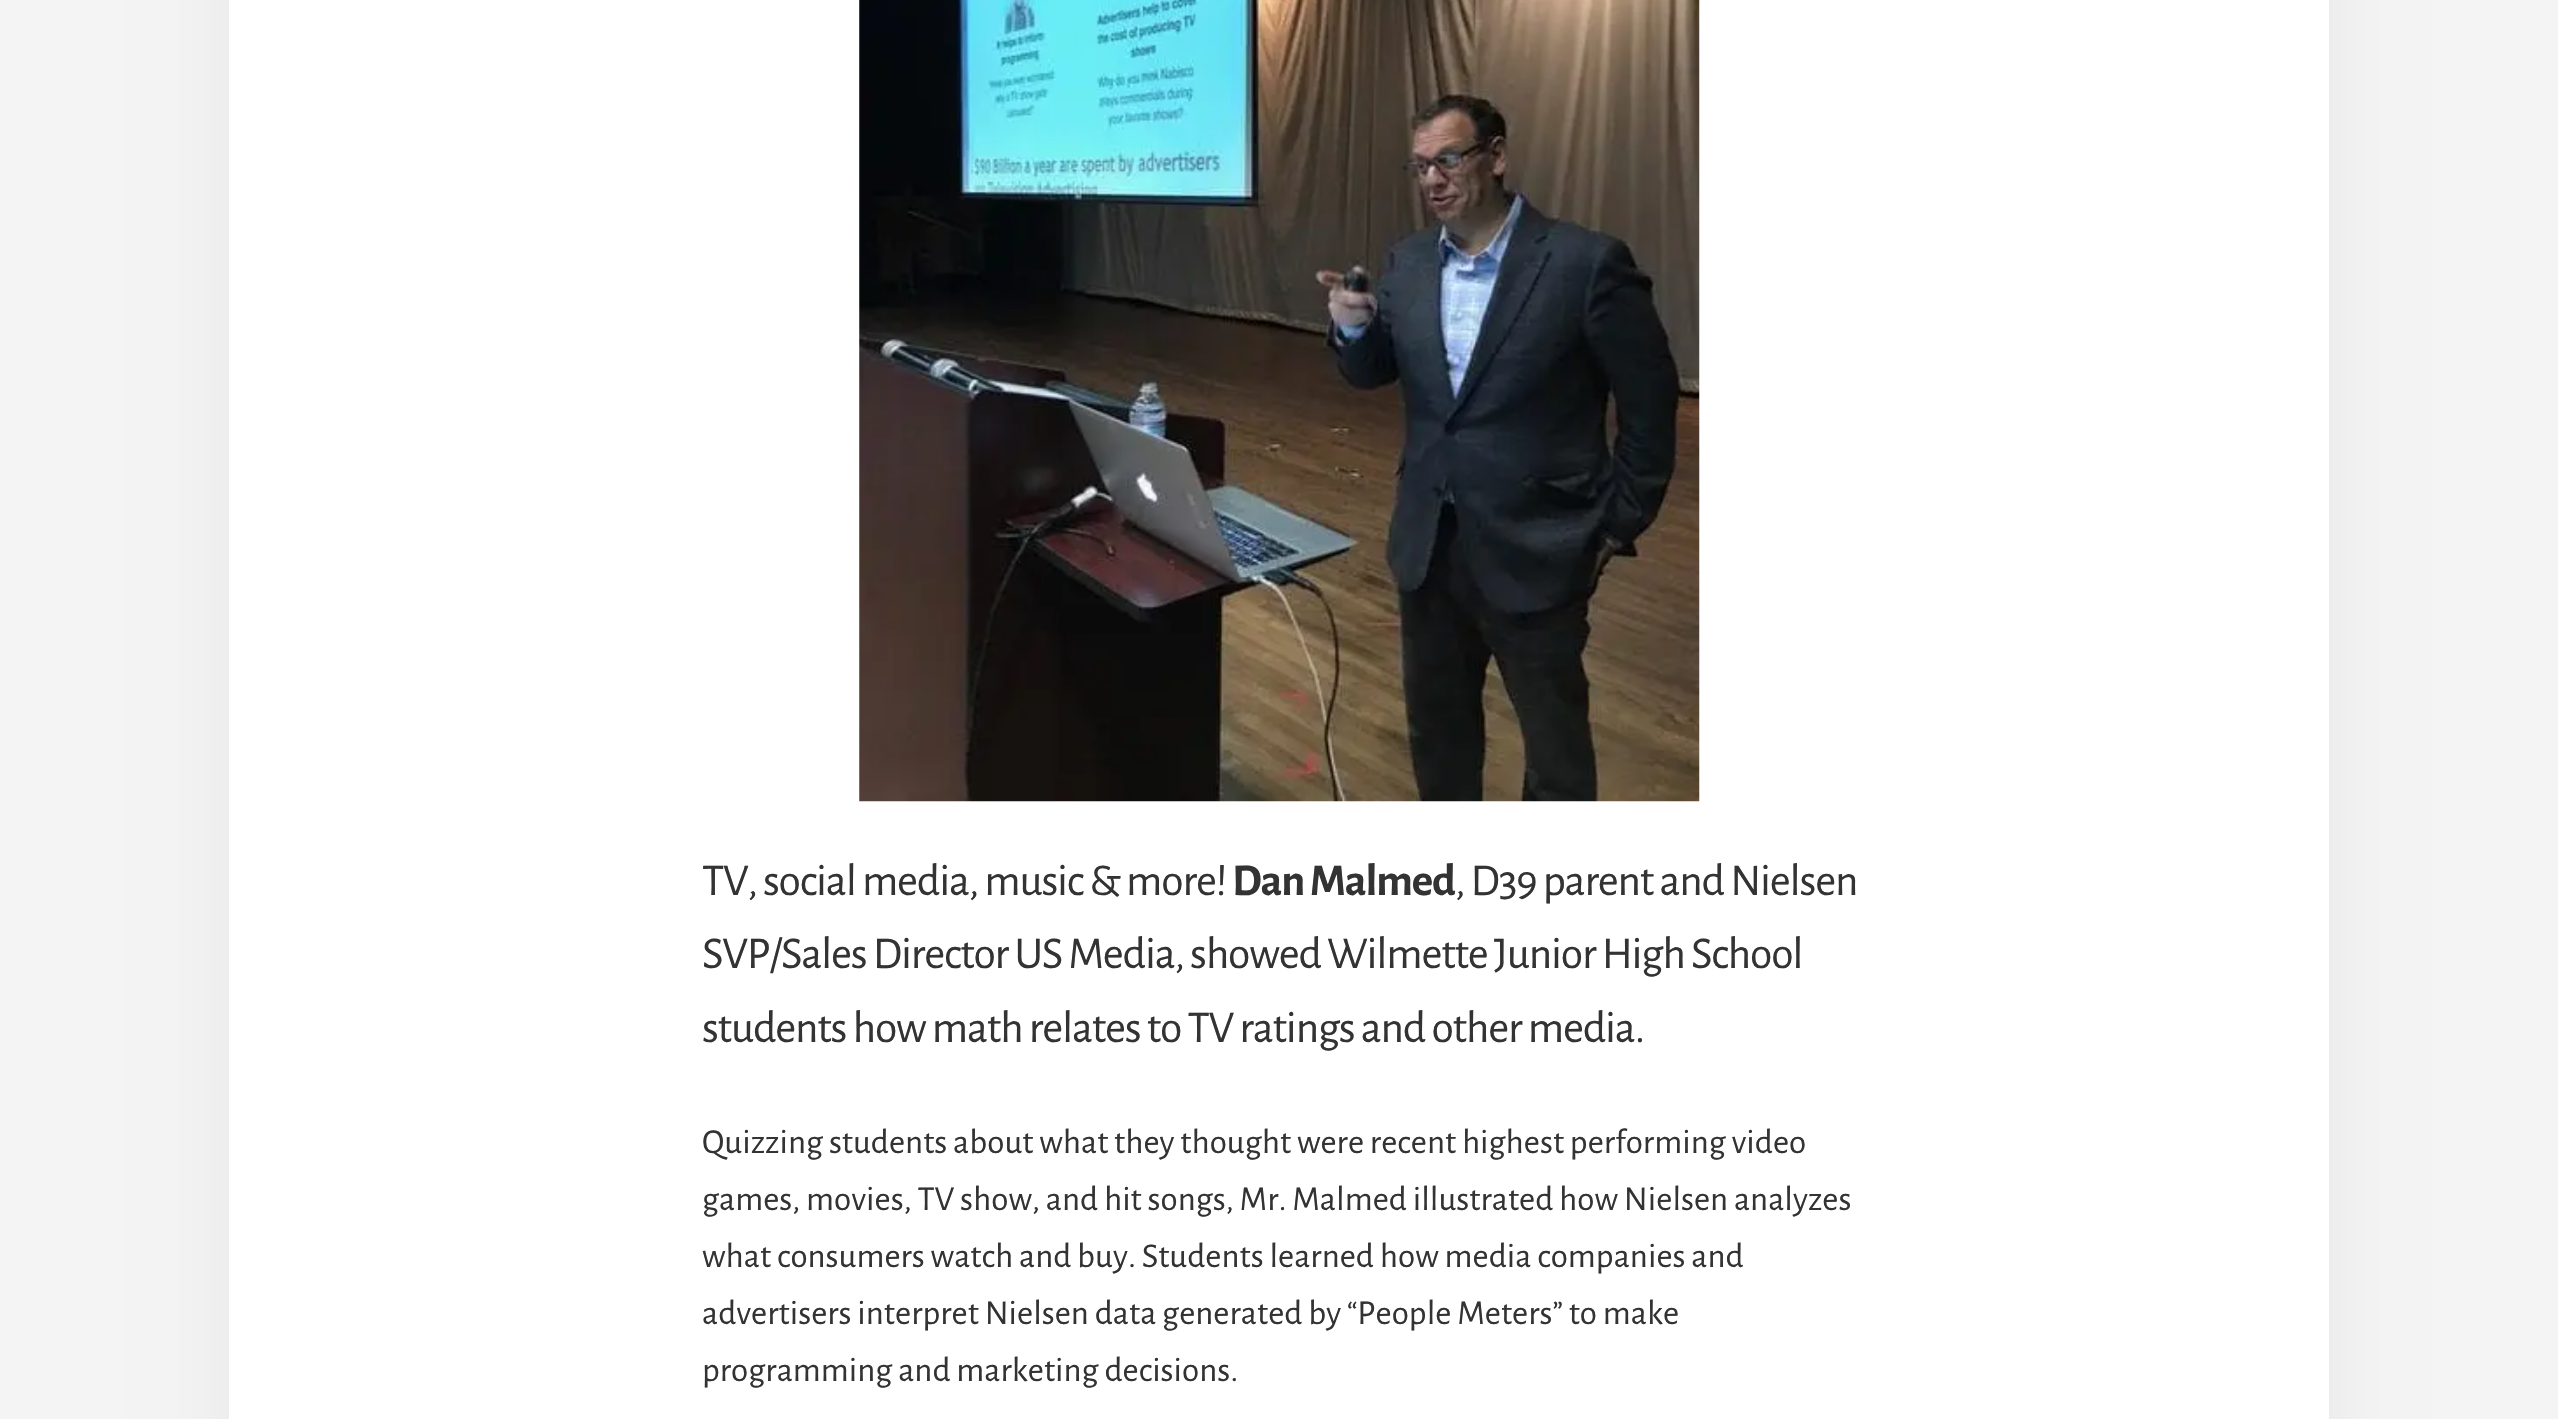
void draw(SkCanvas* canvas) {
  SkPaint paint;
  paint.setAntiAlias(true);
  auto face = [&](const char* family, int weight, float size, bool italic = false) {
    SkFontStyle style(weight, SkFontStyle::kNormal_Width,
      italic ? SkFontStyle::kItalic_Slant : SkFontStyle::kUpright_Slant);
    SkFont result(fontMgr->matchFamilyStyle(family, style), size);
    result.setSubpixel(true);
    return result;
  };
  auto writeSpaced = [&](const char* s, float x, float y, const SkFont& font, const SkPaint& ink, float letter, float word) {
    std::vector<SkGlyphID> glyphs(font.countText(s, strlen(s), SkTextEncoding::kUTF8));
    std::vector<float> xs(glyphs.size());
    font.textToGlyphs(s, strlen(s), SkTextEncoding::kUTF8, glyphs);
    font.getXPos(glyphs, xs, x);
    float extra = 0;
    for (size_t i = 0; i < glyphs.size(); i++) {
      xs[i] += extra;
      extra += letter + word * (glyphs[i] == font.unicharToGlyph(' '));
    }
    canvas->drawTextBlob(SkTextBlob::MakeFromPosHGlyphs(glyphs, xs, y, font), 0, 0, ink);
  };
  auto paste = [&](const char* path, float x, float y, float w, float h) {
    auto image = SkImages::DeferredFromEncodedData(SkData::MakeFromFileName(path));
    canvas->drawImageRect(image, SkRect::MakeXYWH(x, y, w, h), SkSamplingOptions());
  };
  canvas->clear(0xfff4f4f4);
  paint.setColor(0x0d000000);
  paint.setMaskFilter(SkMaskFilter::MakeBlur(kNormal_SkBlurStyle, 35));
  canvas->drawRect(SkRect::MakeXYWH(229, -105, 2100, 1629), paint);
  paint.setMaskFilter(nullptr);
  paint.setColor(0xffffffff);
  canvas->drawRect(SkRect::MakeXYWH(229, 0, 2100, 1419), paint);
  paste("img/1.png", 859, 0, 841, 802);
  auto f0 = face("Alegreya Sans", 400, 45.5f);
  paint.setColor(0xff333333);
  writeSpaced("TV, social media, music & more!", 702, 895, f0, paint, -1.22f, 0);
  auto f1 = face("Alegreya Sans", 700, 45.5f);
  writeSpaced("Dan Malmed", 1232, 895, f1, paint, -1.22f, 0);
  {
    const struct { const char* s; float x, y; } items[] = {
      {", D39 parent and Nielsen", 1455, 895},
      {"SVP/Sales Director US Media, showed Wilmette Junior High School", 702, 968},
      {"students how math relates to TV ratings and other media.", 702, 1042},
    };
    for (auto [s, x, y] : items) {
      writeSpaced(s, x, y, f0, paint, -1.22f, 0);
    }
  }
  auto f2 = face("Alegreya Sans", 400, 35);
  {
    const struct { const char* s; float x, y; } items[] = {
      {"Quizzing students about what they thought were recent highest performing video", 702, 1153},
      {"games, movies, TV show, and hit songs, Mr. Malmed illustrated how Nielsen analyzes", 702, 1210},
      {"what consumers watch and buy. Students learned how media companies and", 702, 1267},
      {"advertisers interpret Nielsen data generated by “People Meters” to make", 702, 1324},
      {"programming and marketing decisions.", 702, 1381},
    };
    for (auto [s, x, y] : items) {
      canvas->drawString(s, x, y, f2, paint);
    }
  }
}
